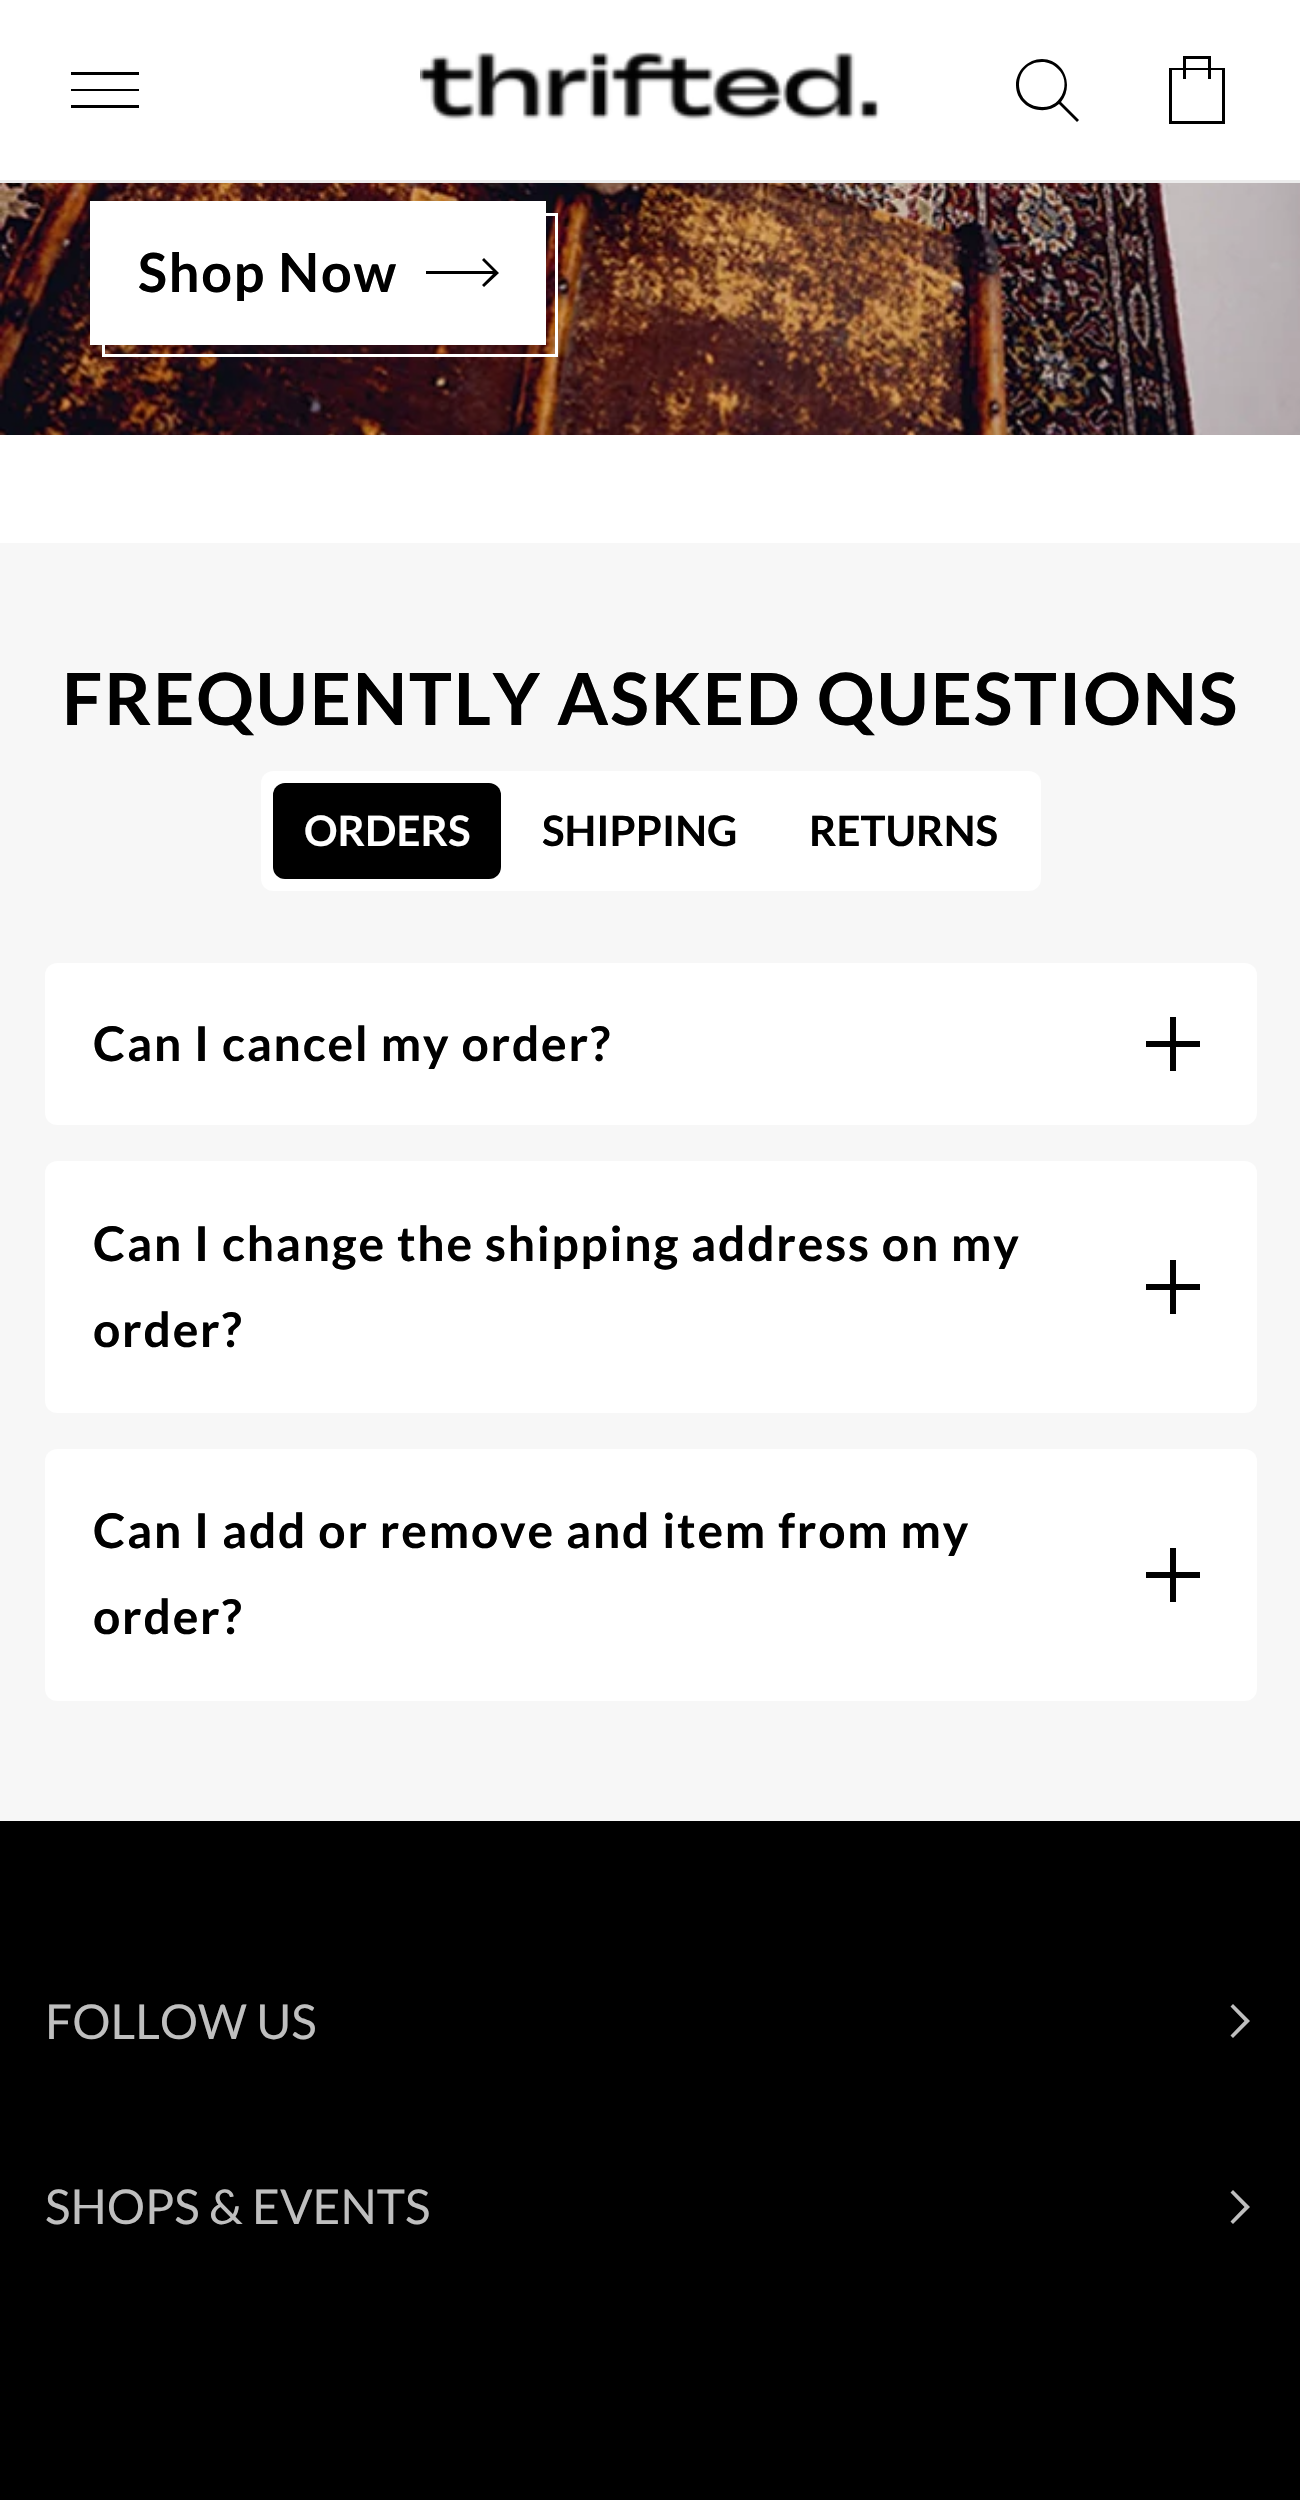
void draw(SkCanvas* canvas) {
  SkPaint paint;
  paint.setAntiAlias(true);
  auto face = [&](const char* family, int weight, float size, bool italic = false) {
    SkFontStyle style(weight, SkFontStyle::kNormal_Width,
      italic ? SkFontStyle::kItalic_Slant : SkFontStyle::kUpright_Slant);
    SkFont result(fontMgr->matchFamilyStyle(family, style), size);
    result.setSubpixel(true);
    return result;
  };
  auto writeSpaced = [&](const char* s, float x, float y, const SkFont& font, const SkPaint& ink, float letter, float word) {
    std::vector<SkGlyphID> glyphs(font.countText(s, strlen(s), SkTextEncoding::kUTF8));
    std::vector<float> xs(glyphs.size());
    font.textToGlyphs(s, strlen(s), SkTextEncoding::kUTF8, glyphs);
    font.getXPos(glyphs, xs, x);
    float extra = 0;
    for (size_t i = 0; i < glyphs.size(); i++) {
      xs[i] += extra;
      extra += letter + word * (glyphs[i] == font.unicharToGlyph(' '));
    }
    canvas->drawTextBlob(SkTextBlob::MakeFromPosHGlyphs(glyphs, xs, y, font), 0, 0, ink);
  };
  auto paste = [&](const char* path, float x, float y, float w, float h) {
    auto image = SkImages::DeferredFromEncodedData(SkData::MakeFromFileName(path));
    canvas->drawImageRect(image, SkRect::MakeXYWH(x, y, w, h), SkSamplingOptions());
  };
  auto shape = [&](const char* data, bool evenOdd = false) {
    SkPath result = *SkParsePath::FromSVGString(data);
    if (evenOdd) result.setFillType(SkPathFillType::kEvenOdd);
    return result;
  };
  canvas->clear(0xffffffff);
  {
    const struct { float x, y, w, h; SkColor color; } items[] = {
      {0, 180, 1300, 3, 0xffececec},
      {71, 72, 68, 3, 0xff000000},
      {71, 89, 68, 2, 0xff000000},
      {71, 105, 68, 3, 0xff000000},
    };
    for (auto [x, y, w, h, color] : items) {
      paint.setColor(color);
      canvas->drawRect(SkRect::MakeXYWH(x, y, w, h), paint);
    }
  }
  paste("img/1.png", 420, 52, 460, 69);
  canvas->drawPath(shape("M1042 62C1012 62 1011 106 1042 107C1062 108 1072 82 1058 69C1053 64 1048 62 1042 62ZM1016 85C1016 71 1028 59 1042 59C1056 59 1067 71 1067 85C1067 91 1065 97 1061 102L1079 120L1077 122L1059 104C1043 118 1016 107 1016 85Z", true), paint);
  canvas->drawPath(shape("M1211 56H1183V68H1169V124H1225V68H1211ZM1208 70V79H1211V70H1222V121H1172V70H1183V79H1186V70ZM1208 68V59H1186V68Z", true), paint);
  paste("img/2.png", 0, 183, 1300, 252);
  paint.setColor(0xffffffff);
  canvas->drawRect(SkRect::MakeXYWH(90, 201, 456, 144), paint);
  paint.setColor(0xff000000);
  canvas->drawPath(shape("M426 271H493L482 260L484 258L499 273L484 287L482 285L493 274H426Z", true), paint);
  paint.setStroke(true);
  paint.setStrokeWidth(3);
  paint.setColor(0xffffffff);
  canvas->drawRect(SkRect::MakeXYWH(103.5f, 214.5f, 453, 141), paint);
  paint.setStroke(false);
  paint.setColor(0xfff7f7f7);
  canvas->drawRect(SkRect::MakeXYWH(0, 543, 1300, 1278), paint);
  paint.setColor(0xffffffff);
  canvas->drawRoundRect(SkRect::MakeXYWH(261, 771, 780, 120), 12, 12, paint);
  paint.setColor(0xff000000);
  canvas->drawRoundRect(SkRect::MakeXYWH(273, 783, 228, 96), 12, 12, paint);
  paint.setColor(0xffffffff);
  canvas->drawRoundRect(SkRect::MakeXYWH(45, 963, 1212, 162), 12, 12, paint);
  paint.setColor(0xff000000);
  canvas->drawPath(shape("M1176 1017V1041H1200V1047H1176V1071H1170V1047H1146V1041H1170V1017Z", true), paint);
  paint.setColor(0xffffffff);
  canvas->drawRoundRect(SkRect::MakeXYWH(45, 1161, 1212, 252), 12, 12, paint);
  paint.setColor(0xff000000);
  canvas->drawPath(shape("M1176 1260V1284H1200V1290H1176V1314H1170V1290H1146V1284H1170V1260Z", true), paint);
  paint.setColor(0xffffffff);
  canvas->drawRoundRect(SkRect::MakeXYWH(45, 1449, 1212, 252), 12, 12, paint);
  paint.setColor(0xff000000);
  canvas->drawPath(shape("M1176 1548V1572H1200V1578H1176V1602H1170V1578H1146V1572H1170V1548Z", true), paint);
  canvas->drawRect(SkRect::MakeXYWH(0, 1821, 1300, 679), paint);
  paint.setColor(0xffbfbfbf);
  canvas->drawPath(shape("M1244.5 2021L1230.5 2006.5L1233 2004L1250 2021L1233 2038L1230.5 2035.5Z", true), paint);
  canvas->drawPath(shape("M1244.5 2207L1230.5 2192.5L1233 2190L1250 2207L1233 2224L1230.5 2221.5Z", true), paint);
  auto f0 = face("Lato", 700, 54);
  paint.setColor(0xff000000);
  writeSpaced("Shop Now", 138, 292, f0, paint, 1.8f, 0);
  auto f1 = face("Lato", 700, 72);
  writeSpaced("FREQUENTLY ASKED QUESTIONS", 62, 725, f1, paint, 1.8f, 0);
  auto f2 = face("Lato", 700, 42);
  paint.setColor(0xffffffff);
  canvas->drawString("ORDERS", 304, 846, f2, paint);
  paint.setColor(0xff000000);
  canvas->drawString("SHIPPING", 542, 846, f2, paint);
  canvas->drawString("RETURNS", 809, 846, f2, paint);
  auto f3 = face("Lato", 700, 48);
  {
    const struct { const char* s; float x, y; } items[] = {
      {"Can I cancel my order?", 93, 1061},
      {"Can I change the shipping address on my", 93, 1261},
      {"order?", 93, 1347},
      {"Can I add or remove and item from my", 93, 1548},
      {"order?", 93, 1634},
    };
    for (auto [s, x, y] : items) {
      writeSpaced(s, x, y, f3, paint, 1.8f, 0);
    }
  }
  auto f4 = face("Lato", 400, 48);
  paint.setColor(0xffbfbfbf);
  canvas->drawString("FOLLOW US", 45, 2039, f4, paint);
  canvas->drawString("SHOPS & EVENTS", 45, 2224, f4, paint);
}
